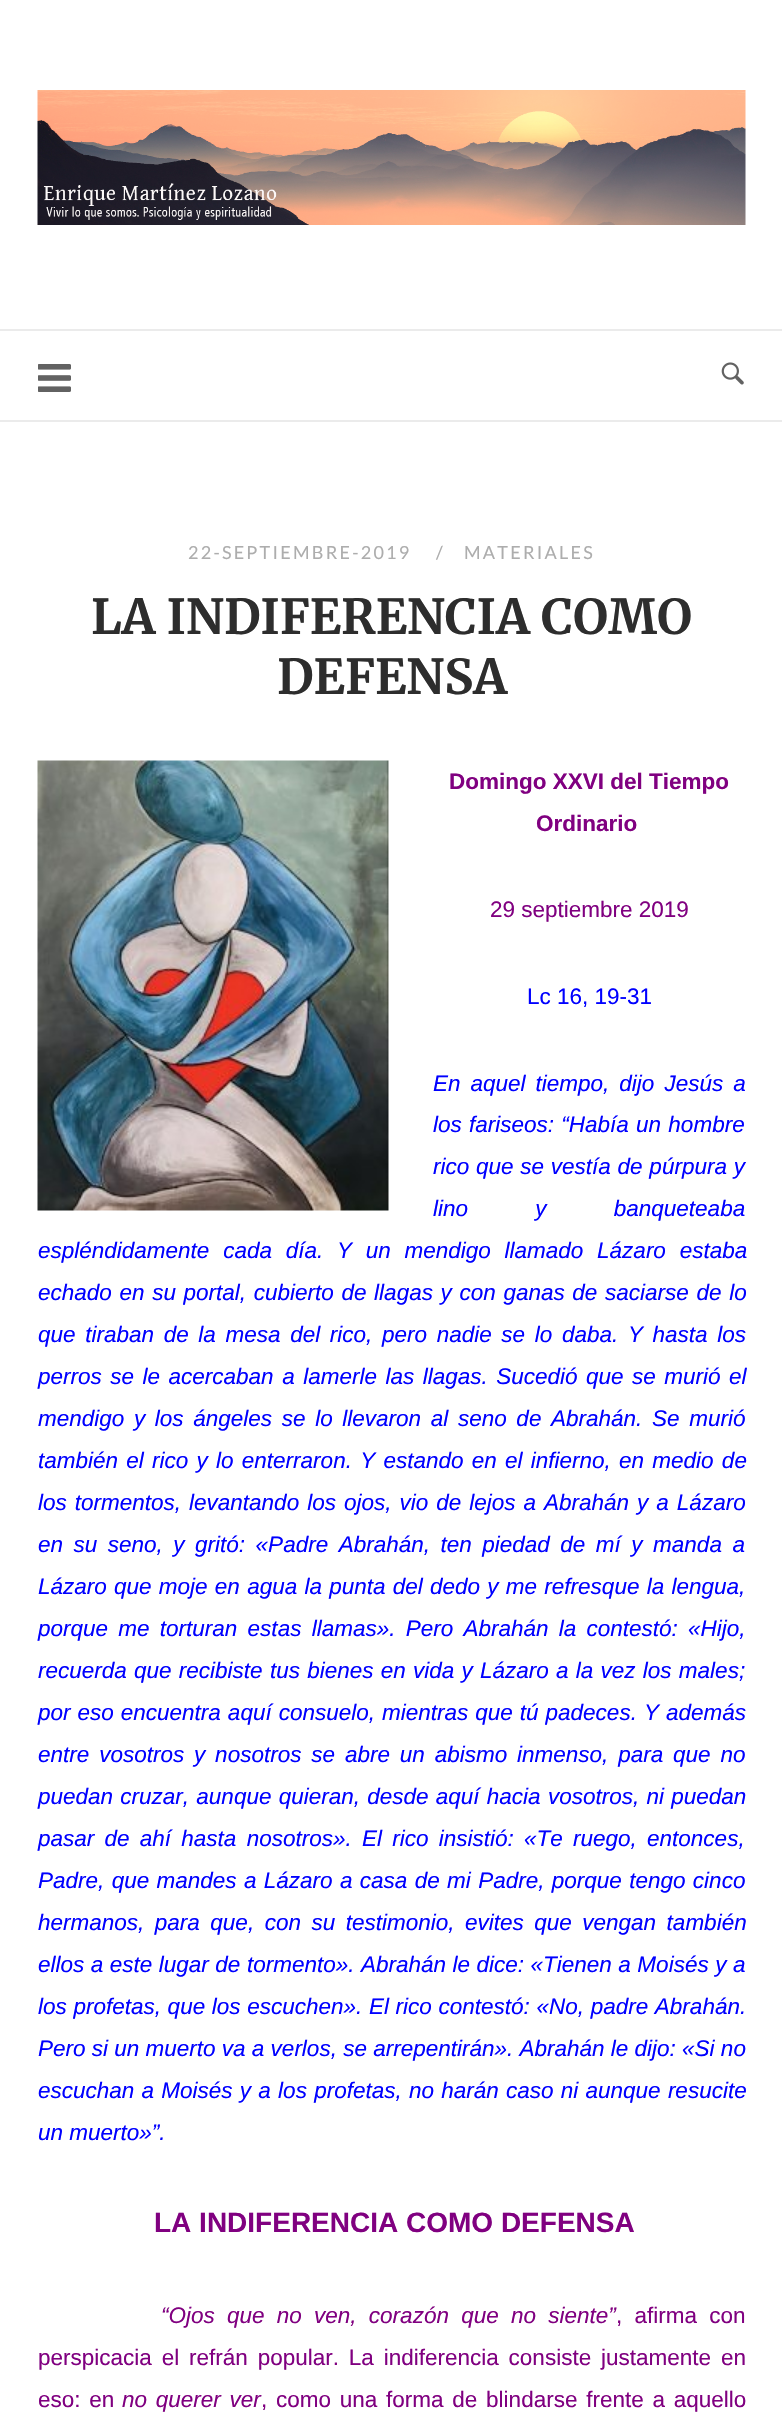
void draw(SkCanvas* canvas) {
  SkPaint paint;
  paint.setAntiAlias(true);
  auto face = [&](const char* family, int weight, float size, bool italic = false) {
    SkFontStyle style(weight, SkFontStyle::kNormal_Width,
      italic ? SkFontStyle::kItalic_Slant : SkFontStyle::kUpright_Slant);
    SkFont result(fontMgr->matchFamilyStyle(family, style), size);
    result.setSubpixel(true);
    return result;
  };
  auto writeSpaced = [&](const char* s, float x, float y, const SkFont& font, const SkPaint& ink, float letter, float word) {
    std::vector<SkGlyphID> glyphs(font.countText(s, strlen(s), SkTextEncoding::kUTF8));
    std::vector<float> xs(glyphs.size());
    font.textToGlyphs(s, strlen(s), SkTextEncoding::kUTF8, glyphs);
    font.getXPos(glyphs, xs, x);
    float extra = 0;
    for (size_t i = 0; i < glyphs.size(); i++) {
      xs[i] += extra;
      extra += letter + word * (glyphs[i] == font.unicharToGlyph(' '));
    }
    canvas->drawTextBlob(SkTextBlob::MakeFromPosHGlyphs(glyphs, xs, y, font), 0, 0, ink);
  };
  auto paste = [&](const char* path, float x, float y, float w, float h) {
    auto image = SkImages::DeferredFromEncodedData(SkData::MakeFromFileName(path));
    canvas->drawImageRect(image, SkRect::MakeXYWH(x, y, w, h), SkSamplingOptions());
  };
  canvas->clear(0xffffffff);
  paste("img/1.png", 37, 90, 709, 135);
  paint.setColor(0xffebebeb);
  canvas->drawRect(SkRect::MakeXYWH(0, 329, 782, 2), paint);
  canvas->drawRect(SkRect::MakeXYWH(0, 420, 782, 2), paint);
  paste("img/2.png", 38, 364, 33, 28);
  paste("img/3.png", 721, 362, 23, 23);
  paste("img/4.png", 37, 760, 352, 451);
  auto f0 = face("Lato", 400, 18);
  paint.setColor(0xffadadad);
  {
    const struct { const char* s; float x, y; } items[] = {
      {"22-SEPTIEMBRE-2019", 188, 559},
      {"/", 436, 559},
      {"MATERIALES", 464, 559},
    };
    for (auto [s, x, y] : items) {
      writeSpaced(s, x, y, f0, paint, 2.25f, 0);
    }
  }
  auto f1 = face("Merriweather", 700, 48);
  paint.setColor(0xff2d2d2d);
  canvas->drawString("LA INDIFERENCIA COMO", 91, 634, f1, paint);
  canvas->drawString("DEFENSA", 277, 694, f1, paint);
  auto f2 = face("Liberation Sans", 700, 22.5f);
  paint.setColor(0xff800080);
  canvas->drawString("Domingo XXVI del Tiempo", 449, 789, f2, paint);
  canvas->drawString("Ordinario", 536, 831, f2, paint);
  auto f3 = face("Liberation Sans", 400, 22.5f);
  canvas->drawString("29 septiembre 2019", 490, 917, f3, paint);
  paint.setColor(0xff0000ff);
  canvas->drawString("Lc 16, 19-31", 527, 1004, f3, paint);
  auto f4 = face("Liberation Sans", 400, 22.5f, true);
  writeSpaced("En aquel tiempo, dijo Jesús a", 433, 1091, f4, paint, 0, 3.75f);
  writeSpaced("los fariseos: “Había un hombre", 433, 1132, f4, paint, 0, 1);
  writeSpaced("rico que se vestía de púrpura y", 433, 1174, f4, paint, 0, 0.5f);
  writeSpaced("lino y banqueteaba", 433, 1216, f4, paint, 0, 61);
  writeSpaced("espléndidamente cada día. Y un mendigo llamado Lázaro estaba", 38, 1258, f4, paint, 0, 7.5f);
  writeSpaced("echado en su portal, cubierto de llagas y con ganas de saciarse de lo", 38, 1300, f4, paint, 0, 1.4f);
  writeSpaced("que tiraban de la mesa del rico, pero nadie se lo daba. Y hasta los", 38, 1342, f4, paint, 0, 3.4f);
  writeSpaced("perros se le acercaban a lamerle las llagas. Sucedió que se murió el", 38, 1384, f4, paint, 0, 2.25f);
  writeSpaced("mendigo y los ángeles se lo llevaron al seno de Abrahán. Se murió", 38, 1426, f4, paint, 0, 3.4f);
  writeSpaced("también el rico y lo enterraron. Y estando en el infierno, en medio de", 38, 1468, f4, paint, 0, 2);
  writeSpaced("los tormentos, levantando los ojos, vio de lejos a Abrahán y a Lázaro", 38, 1510, f4, paint, 0, 1.75f);
  writeSpaced("en su seno, y gritó: «Padre Abrahán, ten piedad de mí y manda a", 38, 1552, f4, paint, 0, 4.25f);
  writeSpaced("Lázaro que moje en agua la punta del dedo y me refresque la lengua,", 38, 1594, f4, paint, 0, 1);
  writeSpaced("porque me torturan estas llamas». Pero Abrahán la contestó: «Hijo,", 38, 1636, f4, paint, 0, 4);
  writeSpaced("recuerda que recibiste tus bienes en vida y Lázaro a la vez los males;", 38, 1678, f4, paint, 0, 1);
  writeSpaced("por eso encuentra aquí consuelo, mientras que tú padeces. Y además", 38, 1720, f4, paint, 0, 0.75f);
  writeSpaced("entre vosotros y nosotros se abre un abismo inmenso, para que no", 38, 1762, f4, paint, 0, 3.6f);
  writeSpaced("puedan cruzar, aunque quieran, desde aquí hacia vosotros, ni puedan", 38, 1804, f4, paint, 0, 1);
  writeSpaced("pasar de ahí hasta nosotros». El rico insistió: «Te ruego, entonces,", 38, 1846, f4, paint, 0, 4);
  writeSpaced("Padre, que mandes a Lázaro a casa de mi Padre, porque tengo cinco", 38, 1888, f4, paint, 0, 1.1f);
  writeSpaced("hermanos, para que, con su testimonio, evites que vengan también", 38, 1930, f4, paint, 0, 4.25f);
  writeSpaced("ellos a este lugar de tormento». Abrahán le dice: «Tienen a Moisés y a", 38, 1972, f4, paint, 0, 0.25f);
  writeSpaced("los profetas, que los escuchen». El rico contestó: «No, padre Abrahán.", 38, 2014, f4, paint, 0, 0.4f);
  canvas->drawString("Pero si un muerto va a verlos, se arrepentirán». Abrahán le dijo: «Si no", 38, 2056, f4, paint);
  writeSpaced("escuchan a Moisés y a los profetas, no harán caso ni aunque resucite", 38, 2098, f4, paint, 0, 1);
  canvas->drawString("un muerto»”.", 38, 2140, f4, paint);
  auto f5 = face("Liberation Sans", 700, 28);
  paint.setColor(0xff800080);
  canvas->drawString("LA INDIFERENCIA COMO DEFENSA", 154, 2232, f5, paint);
  writeSpaced("“Ojos que no ven, corazón que no siente”", 161, 2323, f4, paint, 0, 6);
  writeSpaced(", afirma con", 616, 2323, f3, paint, 0, 6);
  writeSpaced("perspicacia el refrán popular. La indiferencia consiste justamente en", 38, 2365, f3, paint, 0, 3.6f);
  writeSpaced("eso: en", 38, 2407, f3, paint, 0, 2.5f);
  writeSpaced("no querer ver", 122, 2407, f4, paint, 0, 2.5f);
  writeSpaced(", como una forma de blindarse frente a aquello", 261, 2407, f3, paint, 0, 2.5f);
}
